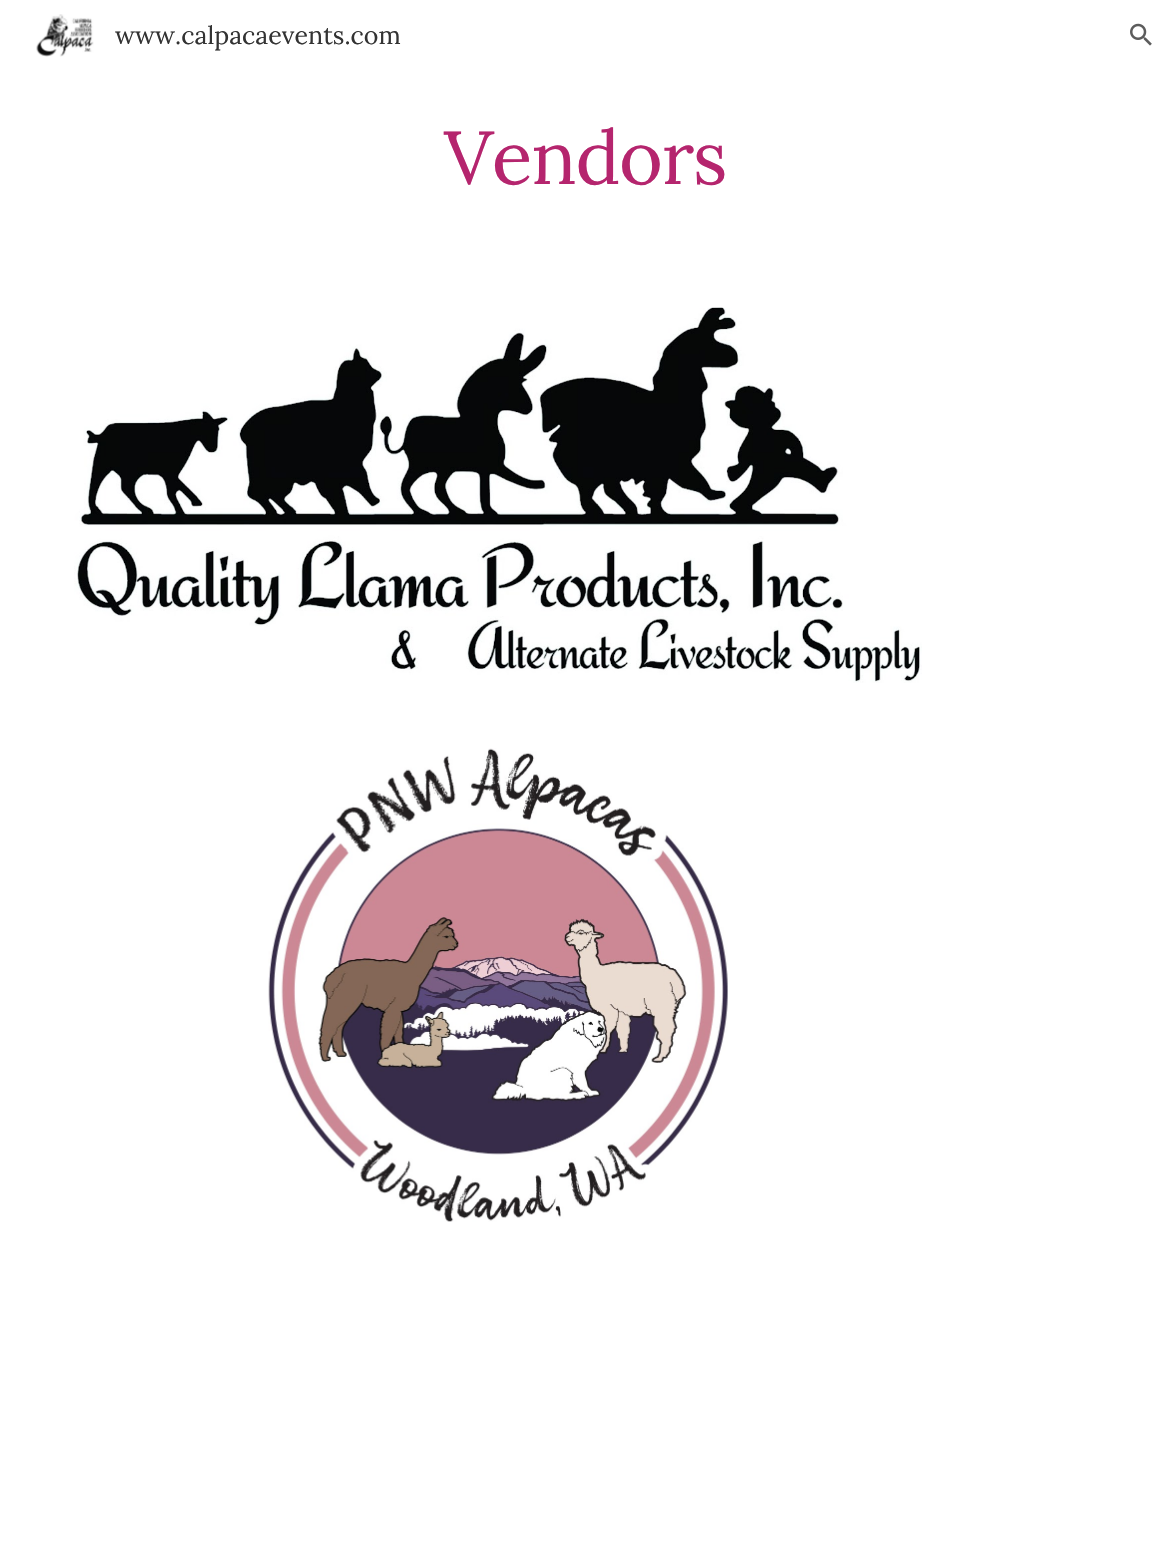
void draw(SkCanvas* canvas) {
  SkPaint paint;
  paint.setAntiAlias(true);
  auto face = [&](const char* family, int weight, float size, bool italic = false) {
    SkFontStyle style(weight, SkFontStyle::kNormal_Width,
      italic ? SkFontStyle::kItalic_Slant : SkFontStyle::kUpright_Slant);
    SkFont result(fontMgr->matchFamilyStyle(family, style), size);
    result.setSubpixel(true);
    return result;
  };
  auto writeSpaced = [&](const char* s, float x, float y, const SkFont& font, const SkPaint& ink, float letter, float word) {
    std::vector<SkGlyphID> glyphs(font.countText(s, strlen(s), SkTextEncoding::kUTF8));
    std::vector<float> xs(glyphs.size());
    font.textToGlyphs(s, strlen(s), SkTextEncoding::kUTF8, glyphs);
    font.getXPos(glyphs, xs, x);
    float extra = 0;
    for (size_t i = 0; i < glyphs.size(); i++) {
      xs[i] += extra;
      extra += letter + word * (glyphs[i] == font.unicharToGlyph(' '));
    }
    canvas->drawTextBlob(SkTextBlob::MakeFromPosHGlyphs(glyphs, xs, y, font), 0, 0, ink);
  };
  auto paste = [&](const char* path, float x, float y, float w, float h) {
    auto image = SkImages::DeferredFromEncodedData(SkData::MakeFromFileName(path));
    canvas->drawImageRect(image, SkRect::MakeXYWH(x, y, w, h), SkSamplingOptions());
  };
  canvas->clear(0xffffffff);
  paste("img/1.png", 36, 14, 58, 43);
  paste("img/2.png", 1130, 23, 22, 23);
  paste("img/3.png", 74, 307, 848, 376);
  paste("img/4.png", 268, 748, 460, 474);
  auto f0 = face("Lora", 400, 25);
  paint.setColor(0xff333333);
  canvas->drawString("www.calpacaevents.com", 115, 44, f0, paint);
  auto f1 = face("Lora", 400, 75);
  paint.setColor(0xffb5256e);
  writeSpaced("Vendors", 444, 184, f1, paint, -1.25f, 0);
}
